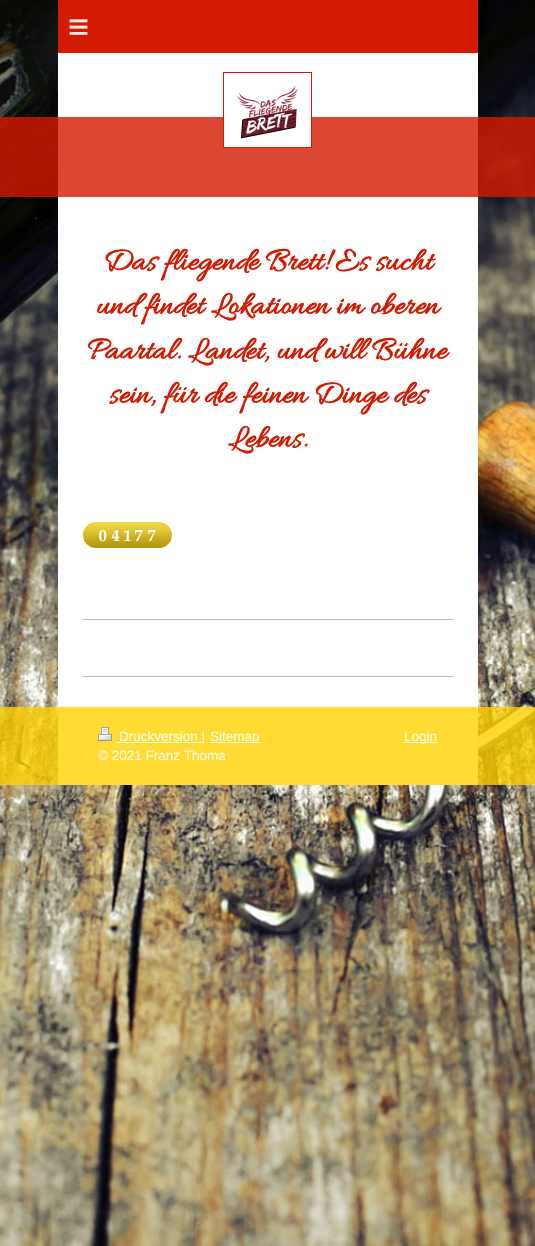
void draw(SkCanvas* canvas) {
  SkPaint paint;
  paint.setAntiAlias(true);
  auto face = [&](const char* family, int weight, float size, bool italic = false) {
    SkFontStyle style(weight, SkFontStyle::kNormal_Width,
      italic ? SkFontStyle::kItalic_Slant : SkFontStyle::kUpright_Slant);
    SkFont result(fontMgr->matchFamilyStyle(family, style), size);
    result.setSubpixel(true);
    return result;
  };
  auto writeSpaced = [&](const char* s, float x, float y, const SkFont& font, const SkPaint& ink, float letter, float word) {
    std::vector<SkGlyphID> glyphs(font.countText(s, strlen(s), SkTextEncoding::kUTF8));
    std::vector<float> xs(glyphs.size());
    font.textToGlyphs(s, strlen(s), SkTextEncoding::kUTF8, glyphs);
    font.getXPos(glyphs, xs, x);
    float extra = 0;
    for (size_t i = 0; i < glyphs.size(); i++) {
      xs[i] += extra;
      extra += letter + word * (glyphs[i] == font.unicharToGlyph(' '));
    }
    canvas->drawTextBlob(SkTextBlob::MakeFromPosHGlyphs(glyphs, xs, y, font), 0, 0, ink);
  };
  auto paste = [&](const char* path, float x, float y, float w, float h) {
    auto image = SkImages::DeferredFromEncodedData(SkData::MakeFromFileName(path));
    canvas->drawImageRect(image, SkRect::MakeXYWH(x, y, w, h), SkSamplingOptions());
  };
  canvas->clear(0xffffffff);
  paste("img/1.png", 0, 0, 535, 1246);
  {
    const struct { float x, y, w, h; SkColor color; } items[] = {
      {58, 0, 420, 53, 0xffd31b03},
      {58, 53, 420, 732, 0xffffffff},
      {0, 117, 535, 80, 0xccd31900},
    };
    for (auto [x, y, w, h, color] : items) {
      paint.setColor(color);
      canvas->drawRect(SkRect::MakeXYWH(x, y, w, h), paint);
    }
  }
  paint.setStroke(true);
  paint.setStrokeWidth(1);
  paint.setColor(0xffd31900);
  canvas->drawRect(SkRect::MakeXYWH(223.5f, 72.5f, 88, 75), paint);
  paint.setStroke(false);
  paint.setColor(0xffffffff);
  canvas->drawRect(SkRect::MakeXYWH(224, 117, 87, 30), paint);
  paste("img/2.png", 236, 85, 63, 54);
  paste("img/3.png", 83, 522, 14, 26);
  paste("img/4.png", 97, 522, 13, 26);
  paste("img/5.png", 110, 522, 13, 26);
  paste("img/6.png", 123, 522, 10, 26);
  paste("img/7.png", 133, 522, 13, 26);
  paste("img/7.png", 146, 522, 13, 26);
  paste("img/8.png", 159, 522, 13, 26);
  {
    const struct { float x, y, w, h; SkColor color; } items[] = {
      {83, 619, 370, 1, 0xffbababa},
      {83, 676, 370, 1, 0xffbababa},
      {0, 707, 535, 78, 0xccffd200},
    };
    for (auto [x, y, w, h, color] : items) {
      paint.setColor(color);
      canvas->drawRect(SkRect::MakeXYWH(x, y, w, h), paint);
    }
  }
  paste("img/9.png", 98, 727, 14, 14);
  {
    const struct { float x, y, w, h; SkColor color; } items[] = {
      {116, 742, 86, 1, 0xfffffbe6},
      {210, 742, 50, 1, 0xfffffbe6},
      {404, 742, 34, 1, 0xfffffbe6},
    };
    for (auto [x, y, w, h, color] : items) {
      paint.setColor(color);
      canvas->drawRect(SkRect::MakeXYWH(x, y, w, h), paint);
    }
  }
  auto f0 = face("Liberation Sans", 400, 36);
  paint.setColor(0xfffbe8e6);
  writeSpaced("≡", 68, 39, f0, paint, 10, 0);
  auto f1 = face("Allura", 700, 32.75f);
  paint.setColor(0xffd31900);
  {
    const struct { const char* s; float x, y; } items[] = {
      {"Das fliegende Brett! Es sucht", 103, 269},
      {"und findet Lokationen im oberen", 96, 313},
      {"Paartal. Landet, und will Bühne", 87, 358},
      {"sein, für die feinen Dinge des", 109, 402},
      {"Lebens.", 228, 446},
    };
    for (auto [s, x, y] : items) {
      canvas->drawString(s, x, y, f1, paint);
    }
  }
  auto f2 = face("Liberation Sans", 400, 13.5f);
  paint.setColor(0xfffffbe6);
  canvas->drawString("Druckversion |", 119, 741, f2, paint);
  canvas->drawString("Sitemap", 210, 741, f2, paint);
  canvas->save();
  canvas->clipRect(SkRect::MakeXYWH(98, 727, 340, 38));
  canvas->drawString("© 2021 Franz Thoma", 98, 760, f2, paint);
  canvas->restore();
  canvas->drawString("Login", 404, 741, f2, paint);
}
